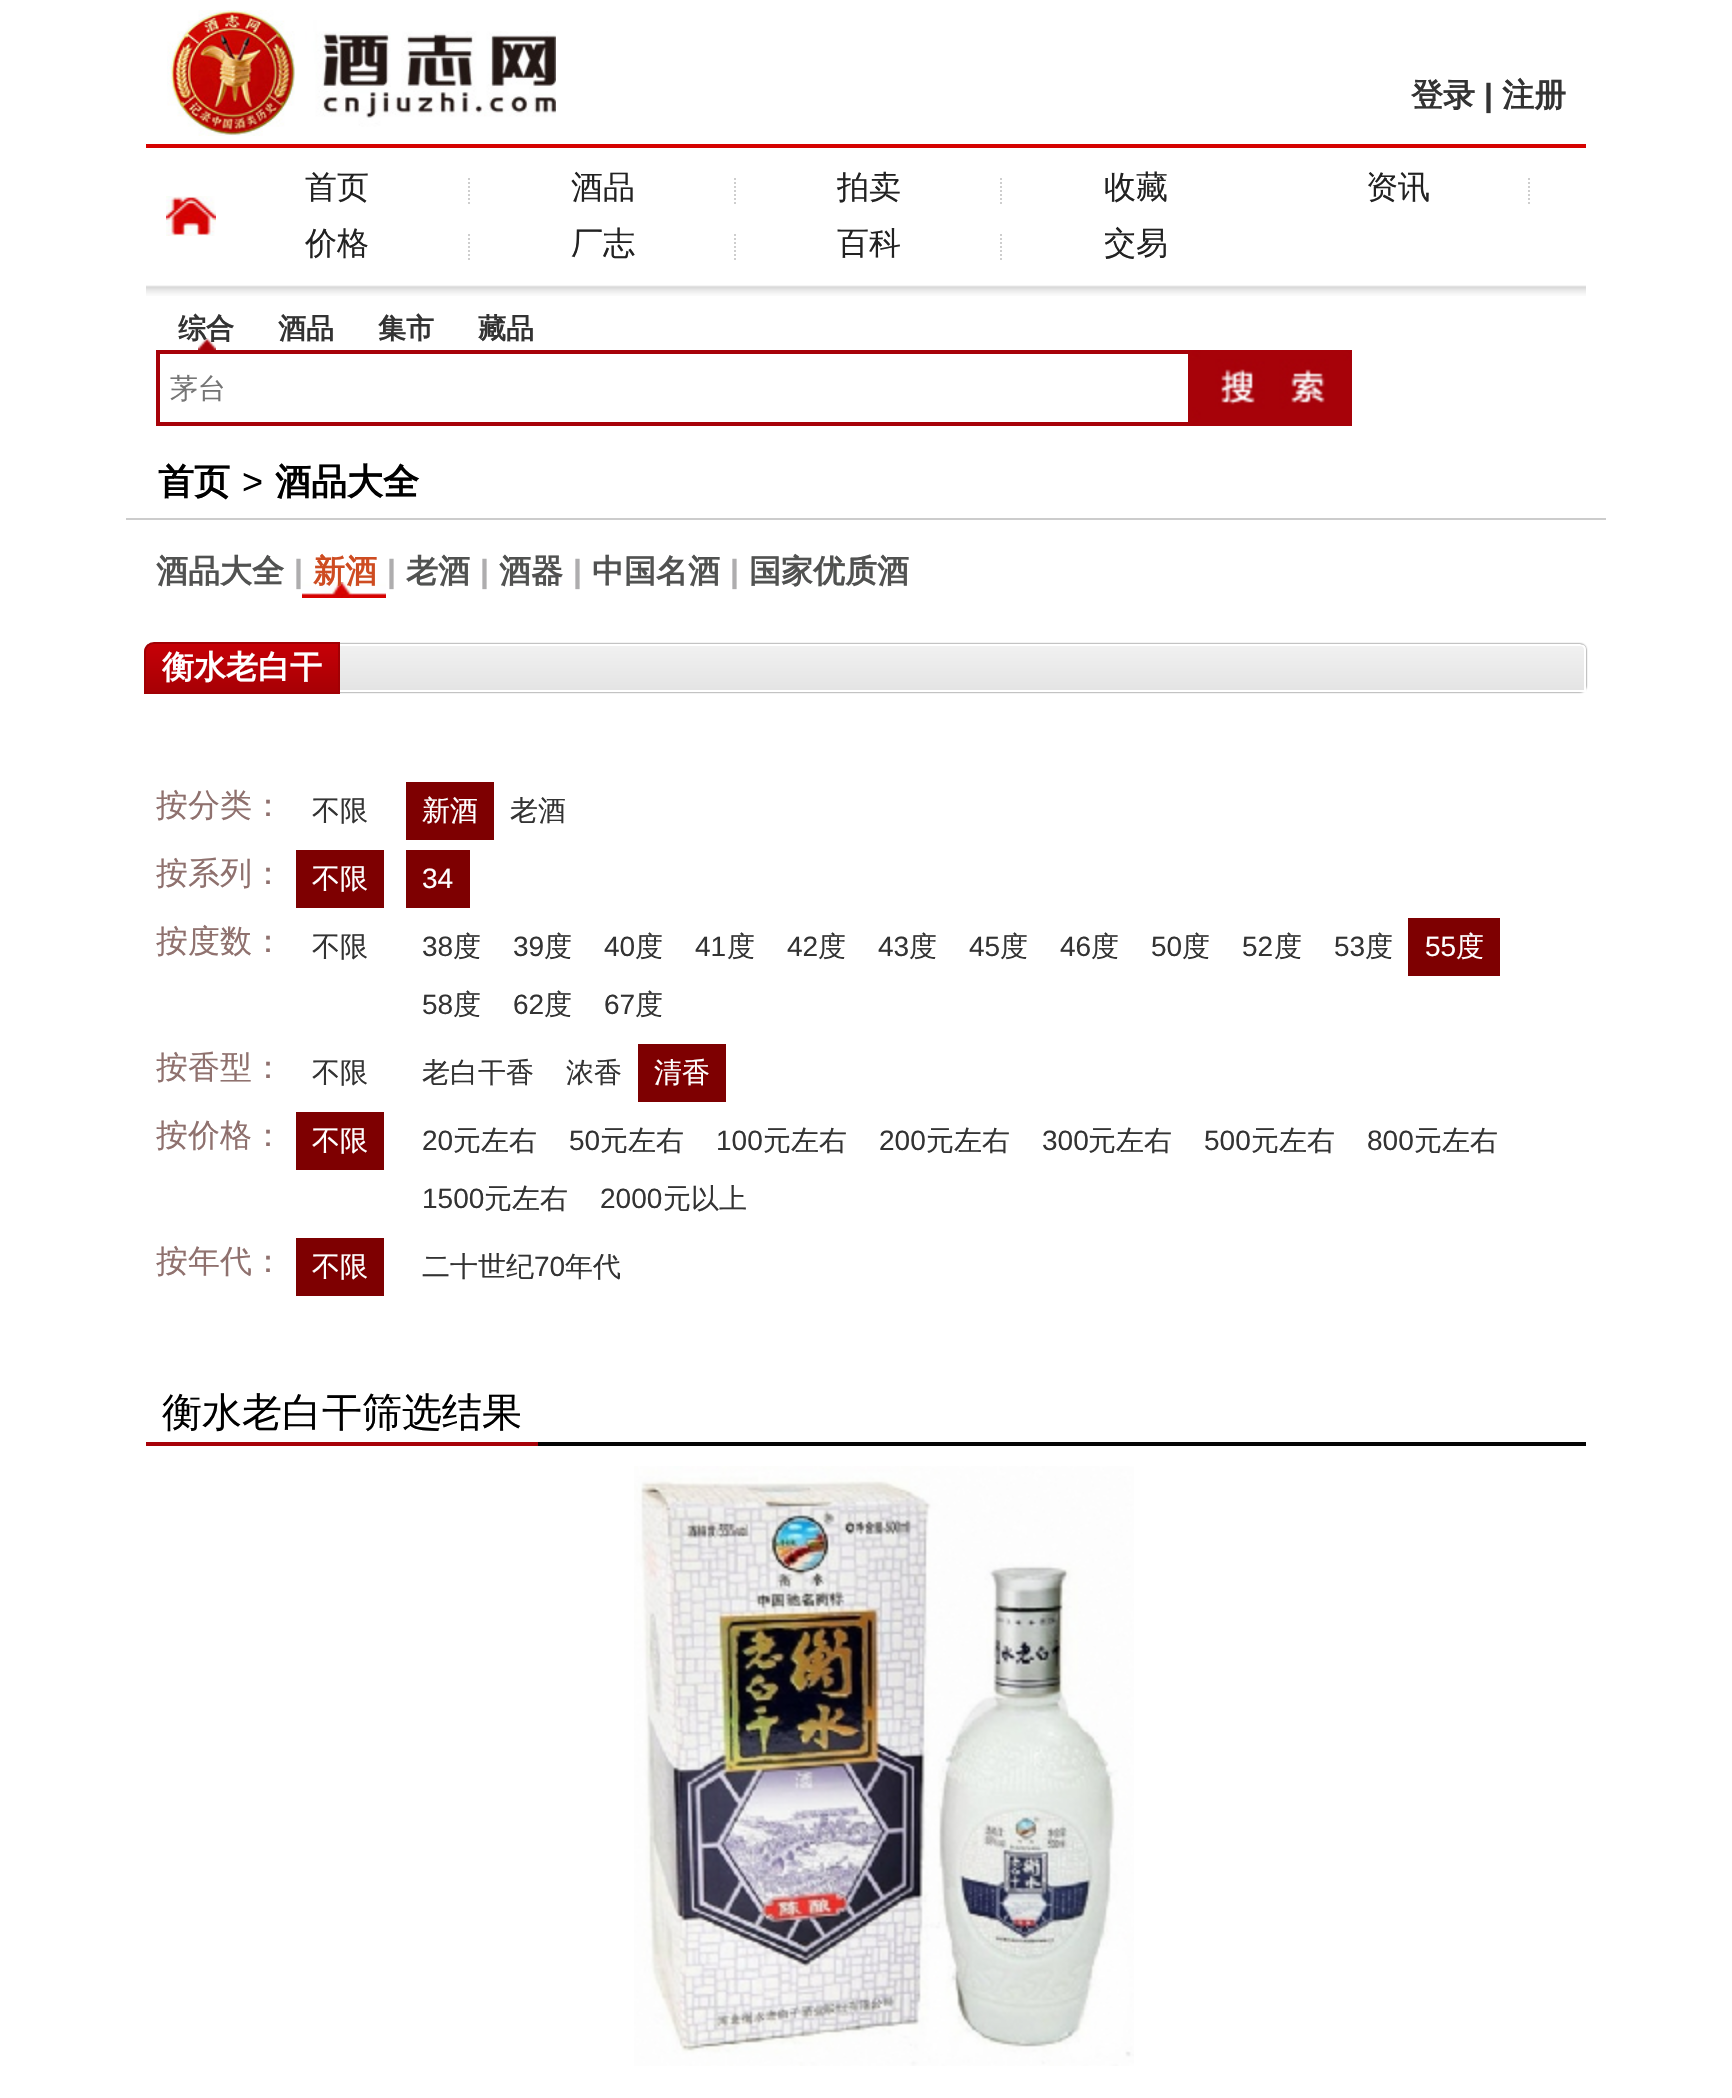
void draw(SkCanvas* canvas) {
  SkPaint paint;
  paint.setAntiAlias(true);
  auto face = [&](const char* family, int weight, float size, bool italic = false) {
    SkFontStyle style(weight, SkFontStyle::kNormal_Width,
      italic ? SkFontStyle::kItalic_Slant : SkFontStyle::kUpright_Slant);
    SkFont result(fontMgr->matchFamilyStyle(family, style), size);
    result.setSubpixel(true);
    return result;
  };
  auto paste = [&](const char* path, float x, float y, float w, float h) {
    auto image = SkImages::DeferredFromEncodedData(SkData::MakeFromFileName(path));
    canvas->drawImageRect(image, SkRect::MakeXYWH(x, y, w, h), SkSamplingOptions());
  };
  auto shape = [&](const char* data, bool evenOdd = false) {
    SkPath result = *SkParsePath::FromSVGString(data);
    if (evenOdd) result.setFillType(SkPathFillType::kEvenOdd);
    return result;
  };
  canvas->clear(0xffffffff);
  paint.setColor(0xffd60200);
  canvas->drawRect(SkRect::MakeXYWH(146, 144, 1440, 4), paint);
  paste("img/1.png", 167, 10, 389, 126);
  paste("img/2.png", 166, 196, 50, 40);
  paste("img/3.png", 146, 285, 1440, 11);
  paint.setStroke(true);
  paint.setStrokeWidth(2);
  paint.setColor(0xffcecece);
  paint.setPathEffect(SkDashPathEffect::Make({{2, 2}}, 0));
  canvas->drawPath(shape("M469 178V204"), paint);
  paint.setPathEffect(nullptr);
  paint.setPathEffect(SkDashPathEffect::Make({{2, 2}}, 0));
  canvas->drawPath(shape("M735 178V204"), paint);
  paint.setPathEffect(nullptr);
  paint.setPathEffect(SkDashPathEffect::Make({{2, 2}}, 0));
  canvas->drawPath(shape("M1001 178V204"), paint);
  paint.setPathEffect(nullptr);
  paint.setPathEffect(SkDashPathEffect::Make({{2, 2}}, 0));
  canvas->drawPath(shape("M1529 178V204"), paint);
  paint.setPathEffect(nullptr);
  paint.setPathEffect(SkDashPathEffect::Make({{2, 2}}, 0));
  canvas->drawPath(shape("M469 234V260"), paint);
  paint.setPathEffect(nullptr);
  paint.setPathEffect(SkDashPathEffect::Make({{2, 2}}, 0));
  canvas->drawPath(shape("M735 234V260"), paint);
  paint.setPathEffect(nullptr);
  paint.setPathEffect(SkDashPathEffect::Make({{2, 2}}, 0));
  canvas->drawPath(shape("M1001 234V260"), paint);
  paint.setPathEffect(nullptr);
  paste("img/4.png", 198, 338, 18, 12);
  paint.setStrokeWidth(4);
  paint.setColor(0xffa70209);
  canvas->drawRect(SkRect::MakeXYWH(158, 352, 1032, 72), paint);
  paste("img/5.png", 1192, 350, 160, 76);
  paint.setStroke(false);
  paint.setColor(0xffcccccc);
  canvas->drawRect(SkRect::MakeXYWH(126, 518, 1480, 2), paint);
  paste("img/6.png", 302, 582, 84, 16);
  paint.setColor(0xff1c1c1c);
  paint.setMaskFilter(SkMaskFilter::MakeBlur(kNormal_SkBlurStyle, 1));
  canvas->drawRoundRect(SkRect::MakeXYWH(146, 644, 1440, 48), 6, 6, paint);
  paint.setMaskFilter(nullptr);
  canvas->save();
  canvas->clipPath(shape("M152 644H1580C1583.5 644 1586 646.5 1586 650V692H146V650C146 646.5 148.5 644 152 644Z"), true);
  {
    const SkColor colors[] = {0xfff1f1f1, 0xffe4e4e4};
    const float stops[] = {0, 1};
    const SkPoint ends[] = {{148, 646}, {148, 690}};
    paint.setShader(SkGradientShader::MakeLinear(ends, colors, stops, 2, SkTileMode::kClamp));
    paint.setAlpha(255);
  }
  canvas->drawRect(SkRect::MakeXYWH(340, 646, 1246, 44), paint);
  canvas->restore();
  paint.setStroke(true);
  paint.setStrokeWidth(2);
  paint.setShader(nullptr);
  paint.setColor(0xffffffff);
  canvas->drawPath(shape("M152 645H1580C1583 645 1585 647 1585 650V691H147V650C147 647 149 645 152 645Z"), paint);
  canvas->save();
  canvas->clipPath(shape("M154 642H340V694H144V652C144 646.5 148.5 642 154 642Z"), true);
  paint.setStroke(false);
  {
    const SkColor colors[] = {0xffc60006, 0xffa70005};
    const float stops[] = {0, 1};
    const SkPoint ends[] = {{146, 644}, {146, 692}};
    paint.setShader(SkGradientShader::MakeLinear(ends, colors, stops, 2, SkTileMode::kClamp));
    paint.setAlpha(255);
  }
  canvas->drawRect(SkRect::MakeXYWH(144, 644, 194, 48), paint);
  canvas->restore();
  paint.setStroke(true);
  paint.setShader(nullptr);
  paint.setColor(0xffa10004);
  canvas->drawPath(shape("M154 643H339V693H145V652C145 647 149 643 154 643Z"), paint);
  paint.setStroke(false);
  {
    const struct { float x, y, w, h; SkColor color; } items[] = {
      {406, 782, 88, 58, 0xff7e0001},
      {296, 850, 88, 58, 0xff7e0001},
      {406, 850, 64, 58, 0xff7e0001},
      {1408, 918, 92, 58, 0xff7e0001},
      {638, 1044, 88, 58, 0xff7e0001},
      {296, 1112, 88, 58, 0xff7e0001},
      {296, 1238, 88, 58, 0xff7e0001},
      {538, 1442, 1048, 4, 0xff040404},
      {146, 1442, 392, 4, 0xffa70209},
    };
    for (auto [x, y, w, h, color] : items) {
      paint.setColor(color);
      canvas->drawRect(SkRect::MakeXYWH(x, y, w, h), paint);
    }
  }
  paste("img/7.png", 634, 1466, 500, 600);
  auto f0 = face("WenQuanYi Zen Hei", 700, 32);
  paint.setColor(0xff333333);
  canvas->drawString("登录", 1411, 106, f0, paint);
  auto f1 = face("Liberation Sans", 700, 32);
  canvas->drawString("|", 1484, 106, f1, paint);
  canvas->drawString("注册", 1502, 106, f0, paint);
  auto f2 = face("WenQuanYi Zen Hei", 500, 32);
  paint.setColor(0xff222222);
  {
    const struct { const char* s; float x, y; } items[] = {
      {"首页", 305, 198},
      {"酒品", 571, 198},
      {"拍卖", 837, 198},
      {"收藏", 1104, 198},
      {"资讯", 1366, 198},
      {"价格", 305, 254},
      {"厂志", 571, 254},
      {"百科", 837, 254},
      {"交易", 1104, 254},
    };
    for (auto [s, x, y] : items) {
      canvas->drawString(s, x, y, f2, paint);
    }
  }
  auto f3 = face("WenQuanYi Zen Hei", 700, 28);
  paint.setColor(0xff333333);
  {
    const struct { const char* s; float x, y; } items[] = {
      {"综合", 178, 338},
      {"酒品", 278, 338},
      {"集市", 378, 338},
      {"藏品", 478, 338},
    };
    for (auto [s, x, y] : items) {
      canvas->drawString(s, x, y, f3, paint);
    }
  }
  auto f4 = face("WenQuanYi Zen Hei", 500, 28);
  paint.setColor(0xff757575);
  canvas->drawString("茅台", 170, 398, f4, paint);
  auto f5 = face("WenQuanYi Zen Hei", 700, 36);
  paint.setColor(0xff000000);
  canvas->drawString("首页", 158, 494, f5, paint);
  auto f6 = face("Liberation Sans", 400, 36);
  canvas->drawString(">", 242, 494, f6, paint);
  canvas->drawString("酒品大全", 275, 494, f5, paint);
  paint.setColor(0xff515251);
  canvas->drawString("酒品大全", 156, 582, f0, paint);
  paint.setColor(0xffaeadae);
  canvas->drawString("|", 294, 582, f1, paint);
  paint.setColor(0xffce4c21);
  canvas->drawString("新酒", 313, 582, f0, paint);
  paint.setColor(0xffaeadae);
  canvas->drawString("|", 387, 582, f1, paint);
  paint.setColor(0xff515251);
  canvas->drawString("老酒", 406, 582, f0, paint);
  paint.setColor(0xffaeadae);
  canvas->drawString("|", 480, 582, f1, paint);
  paint.setColor(0xff515251);
  canvas->drawString("酒器", 499, 582, f0, paint);
  paint.setColor(0xffaeadae);
  canvas->drawString("|", 573, 582, f1, paint);
  paint.setColor(0xff515251);
  canvas->drawString("中国名酒", 592, 582, f0, paint);
  paint.setColor(0xffaeadae);
  canvas->drawString("|", 730, 582, f1, paint);
  paint.setColor(0xff515251);
  canvas->drawString("国家优质酒", 749, 582, f0, paint);
  paint.setColor(0xffffffff);
  canvas->drawString("衡水老白干", 162, 678, f0, paint);
  paint.setColor(0xff8f716e);
  canvas->drawString("按分类：", 156, 816, f2, paint);
  paint.setColor(0xff333333);
  canvas->drawString("不限", 312, 820, f4, paint);
  paint.setColor(0xffffffff);
  canvas->drawString("新酒", 422, 820, f4, paint);
  paint.setColor(0xff333333);
  canvas->drawString("老酒", 510, 820, f4, paint);
  paint.setColor(0xff8f716e);
  canvas->drawString("按系列：", 156, 884, f2, paint);
  paint.setColor(0xffffffff);
  canvas->drawString("不限", 312, 888, f4, paint);
  auto f7 = face("Liberation Sans", 400, 28);
  canvas->drawString("34", 422, 888, f7, paint);
  paint.setColor(0xff8f716e);
  canvas->drawString("按度数：", 156, 952, f2, paint);
  paint.setColor(0xff333333);
  canvas->drawString("不限", 312, 956, f4, paint);
  canvas->drawString("38", 422, 956, f7, paint);
  canvas->drawString("度", 453, 956, f4, paint);
  canvas->drawString("39", 513, 956, f7, paint);
  canvas->drawString("度", 544, 956, f4, paint);
  canvas->drawString("40", 604, 956, f7, paint);
  canvas->drawString("度", 635, 956, f4, paint);
  canvas->drawString("41", 695, 956, f7, paint);
  canvas->drawString("度", 727, 956, f4, paint);
  canvas->drawString("42", 787, 956, f7, paint);
  canvas->drawString("度", 818, 956, f4, paint);
  canvas->drawString("43", 878, 956, f7, paint);
  canvas->drawString("度", 909, 956, f4, paint);
  canvas->drawString("45", 969, 956, f7, paint);
  canvas->drawString("度", 1000, 956, f4, paint);
  canvas->drawString("46", 1060, 956, f7, paint);
  canvas->drawString("度", 1091, 956, f4, paint);
  canvas->drawString("50", 1151, 956, f7, paint);
  canvas->drawString("度", 1182, 956, f4, paint);
  canvas->drawString("52", 1242, 956, f7, paint);
  canvas->drawString("度", 1274, 956, f4, paint);
  canvas->drawString("53", 1334, 956, f7, paint);
  canvas->drawString("度", 1365, 956, f4, paint);
  paint.setColor(0xffffffff);
  canvas->drawString("55", 1425, 956, f7, paint);
  canvas->drawString("度", 1456, 956, f4, paint);
  paint.setColor(0xff333333);
  canvas->drawString("58", 422, 1014, f7, paint);
  canvas->drawString("度", 453, 1014, f4, paint);
  canvas->drawString("62", 513, 1014, f7, paint);
  canvas->drawString("度", 544, 1014, f4, paint);
  canvas->drawString("67", 604, 1014, f7, paint);
  canvas->drawString("度", 635, 1014, f4, paint);
  paint.setColor(0xff8f716e);
  canvas->drawString("按香型：", 156, 1078, f2, paint);
  paint.setColor(0xff333333);
  {
    const struct { const char* s; float x, y; } items[] = {
      {"不限", 312, 1082},
      {"老白干香", 422, 1082},
      {"浓香", 566, 1082},
    };
    for (auto [s, x, y] : items) {
      canvas->drawString(s, x, y, f4, paint);
    }
  }
  paint.setColor(0xffffffff);
  canvas->drawString("清香", 654, 1082, f4, paint);
  paint.setColor(0xff8f716e);
  canvas->drawString("按价格：", 156, 1146, f2, paint);
  paint.setColor(0xffffffff);
  canvas->drawString("不限", 312, 1150, f4, paint);
  paint.setColor(0xff333333);
  canvas->drawString("20", 422, 1150, f7, paint);
  canvas->drawString("元左右", 453, 1150, f4, paint);
  canvas->drawString("50", 569, 1150, f7, paint);
  canvas->drawString("元左右", 600, 1150, f4, paint);
  canvas->drawString("100", 716, 1150, f7, paint);
  canvas->drawString("元左右", 763, 1150, f4, paint);
  canvas->drawString("200", 879, 1150, f7, paint);
  canvas->drawString("元左右", 926, 1150, f4, paint);
  canvas->drawString("300", 1042, 1150, f7, paint);
  canvas->drawString("元左右", 1088, 1150, f4, paint);
  canvas->drawString("500", 1204, 1150, f7, paint);
  canvas->drawString("元左右", 1251, 1150, f4, paint);
  canvas->drawString("800", 1367, 1150, f7, paint);
  canvas->drawString("元左右", 1414, 1150, f4, paint);
  canvas->drawString("1500", 422, 1208, f7, paint);
  canvas->drawString("元左右", 484, 1208, f4, paint);
  canvas->drawString("2000", 600, 1208, f7, paint);
  canvas->drawString("元以上", 663, 1208, f4, paint);
  paint.setColor(0xff8f716e);
  canvas->drawString("按年代：", 156, 1272, f2, paint);
  paint.setColor(0xffffffff);
  canvas->drawString("不限", 312, 1276, f4, paint);
  paint.setColor(0xff333333);
  canvas->drawString("二十世纪", 422, 1276, f4, paint);
  canvas->drawString("70", 534, 1276, f7, paint);
  canvas->drawString("年代", 565, 1276, f4, paint);
  auto f8 = face("WenQuanYi Zen Hei", 500, 40);
  paint.setColor(0xff000000);
  canvas->drawString("衡水老白干筛选结果", 162, 1426, f8, paint);
}
